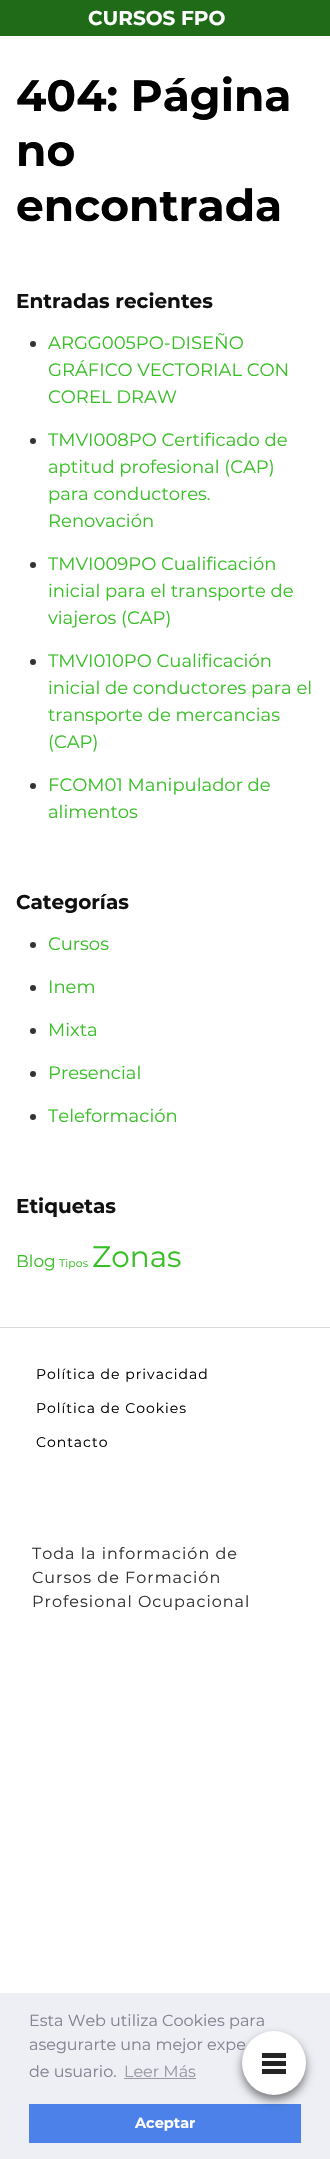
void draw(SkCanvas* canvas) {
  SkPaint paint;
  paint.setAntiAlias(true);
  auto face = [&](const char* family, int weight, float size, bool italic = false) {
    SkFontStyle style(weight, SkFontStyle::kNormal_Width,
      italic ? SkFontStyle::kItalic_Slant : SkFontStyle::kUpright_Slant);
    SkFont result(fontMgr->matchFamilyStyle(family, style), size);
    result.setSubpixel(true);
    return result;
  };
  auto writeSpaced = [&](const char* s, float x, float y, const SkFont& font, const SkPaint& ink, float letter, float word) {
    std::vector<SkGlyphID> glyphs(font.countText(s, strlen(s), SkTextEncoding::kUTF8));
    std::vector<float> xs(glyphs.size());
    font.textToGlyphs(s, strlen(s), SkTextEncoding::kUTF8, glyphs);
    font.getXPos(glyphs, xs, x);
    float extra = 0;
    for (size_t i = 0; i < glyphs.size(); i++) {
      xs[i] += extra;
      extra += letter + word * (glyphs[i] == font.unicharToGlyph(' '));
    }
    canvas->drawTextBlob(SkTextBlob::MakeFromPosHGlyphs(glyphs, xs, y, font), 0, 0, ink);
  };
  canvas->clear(0xffffffff);
  {
    const struct { float x, y, w, h; SkColor color; } items[] = {
      {0, 0, 330, 36, 0xff1f6b18},
      {0, 1993, 330, 166, 0xffedeff5},
      {29, 2104, 272, 39, 0xff4b81e8},
    };
    for (auto [x, y, w, h, color] : items) {
      paint.setColor(color);
      canvas->drawRect(SkRect::MakeXYWH(x, y, w, h), paint);
    }
  }
  paint.setColor(0x80000000);
  paint.setMaskFilter(SkMaskFilter::MakeBlur(kNormal_SkBlurStyle, 5));
  canvas->drawRoundRect(SkRect::MakeXYWH(242, 2036, 64, 64), 32, 32, paint);
  paint.setMaskFilter(nullptr);
  paint.setColor(0xff333333);
  canvas->drawCircle(33, 344, 3, paint);
  canvas->drawCircle(33, 441, 3, paint);
  canvas->drawCircle(33, 565, 3, paint);
  canvas->drawCircle(33, 662, 3, paint);
  canvas->drawCircle(33, 786, 3, paint);
  canvas->drawCircle(33, 945, 3, paint);
  canvas->drawCircle(33, 988, 3, paint);
  canvas->drawCircle(33, 1031, 3, paint);
  canvas->drawCircle(33, 1074, 3, paint);
  canvas->drawCircle(33, 1117, 3, paint);
  paint.setColor(0xffdbdbdb);
  canvas->drawRect(SkRect::MakeXYWH(0, 1327, 330, 1), paint);
  paint.setColor(0xff9899a5);
  canvas->drawRect(SkRect::MakeXYWH(124, 2078, 72, 1), paint);
  auto f0 = face("Montserrat", 700, 20);
  paint.setColor(0xffffffff);
  canvas->drawString("CURSOS FPO", 88, 25, f0, paint);
  auto f1 = face("Montserrat", 700, 44);
  paint.setColor(0xff000000);
  {
    const struct { const char* s; float x, y; } items[] = {
      {"404: Página", 16, 111},
      {"no", 16, 166},
      {"encontrada", 16, 221},
    };
    for (auto [s, x, y] : items) {
      canvas->drawString(s, x, y, f1, paint);
    }
  }
  paint.setColor(0xff111111);
  canvas->drawString("Entradas recientes", 16, 308, f0, paint);
  auto f2 = face("Montserrat", 400, 18);
  paint.setColor(0xff38bf26);
  {
    const struct { const char* s; float x, y; } items[] = {
      {"ARGG005PO-DISEÑO", 48, 349},
      {"GRÁFICO VECTORIAL CON", 48, 376},
      {"COREL DRAW", 48, 403},
      {"TMVI008PO Certificado de", 48, 446},
      {"aptitud profesional (CAP)", 48, 473},
      {"para conductores.", 48, 500},
      {"Renovación", 48, 527},
      {"TMVI009PO Cualificación", 48, 570},
      {"inicial para el transporte de", 48, 597},
      {"viajeros (CAP)", 48, 624},
      {"TMVI010PO Cualificación", 48, 667},
      {"inicial de conductores para el", 48, 694},
      {"transporte de mercancias", 48, 721},
      {"(CAP)", 48, 748},
      {"FCOM01 Manipulador de", 48, 791},
      {"alimentos", 48, 818},
    };
    for (auto [s, x, y] : items) {
      canvas->drawString(s, x, y, f2, paint);
    }
  }
  paint.setColor(0xff111111);
  canvas->drawString("Categorías", 16, 909, f0, paint);
  paint.setColor(0xff38bf26);
  {
    const struct { const char* s; float x, y; } items[] = {
      {"Cursos", 48, 950},
      {"Inem", 48, 993},
      {"Mixta", 48, 1036},
      {"Presencial", 48, 1079},
      {"Teleformación", 48, 1122},
    };
    for (auto [s, x, y] : items) {
      canvas->drawString(s, x, y, f2, paint);
    }
  }
  paint.setColor(0xff111111);
  canvas->drawString("Etiquetas", 16, 1213, f0, paint);
  auto f3 = face("Montserrat", 400, 17);
  paint.setColor(0xff38bf26);
  canvas->drawString("Blog", 16, 1267, f3, paint);
  auto f4 = face("Montserrat", 400, 11);
  canvas->drawString("Tipos", 59, 1267, f4, paint);
  auto f5 = face("Montserrat", 400, 29.5f);
  canvas->drawString("Zonas", 92, 1267, f5, paint);
  auto f6 = face("Montserrat", 400, 14);
  paint.setColor(0xff000000);
  {
    const struct { const char* s; float x, y; } items[] = {
      {"Política de privacidad", 36, 1379},
      {"Política de Cookies", 36, 1413},
      {"Contacto", 36, 1447},
    };
    for (auto [s, x, y] : items) {
      writeSpaced(s, x, y, f6, paint, 1, 0);
    }
  }
  auto f7 = face("Montserrat", 400, 16);
  paint.setColor(0xff333333);
  {
    const struct { const char* s; float x, y; } items[] = {
      {"Toda la información de", 32, 1559},
      {"Cursos de Formación", 32, 1583},
      {"Profesional Ocupacional", 32, 1607},
    };
    for (auto [s, x, y] : items) {
      writeSpaced(s, x, y, f7, paint, 1, 0);
    }
  }
  paint.setColor(0xff838391);
  canvas->drawString("Esta Web utiliza Cookies para", 29, 2026, f7, paint);
  canvas->drawString("asegurarte una mejor expe", 29, 2050, f7, paint);
  paint.setColor(0xffffffff);
  canvas->drawCircle(274, 2063, 32, paint);
  {
    const struct { float x, y, w, h; SkColor color; } items[] = {
      {262, 2069, 24, 5, 0xff252525},
      {262, 2053, 24, 5, 0xff252525},
      {262, 2061, 24, 5, 0xff252525},
    };
    for (auto [x, y, w, h, color] : items) {
      paint.setColor(color);
      canvas->drawRect(SkRect::MakeXYWH(x, y, w, h), paint);
    }
  }
  paint.setColor(0xff838391);
  canvas->drawString("de usuario.", 29, 2077, f7, paint);
  paint.setColor(0xff9899a5);
  canvas->drawString("Leer Más", 124, 2077, f7, paint);
  auto f8 = face("Montserrat", 700, 14.5f);
  paint.setColor(0xffffffff);
  canvas->drawString("Aceptar", 135, 2128, f8, paint);
}
